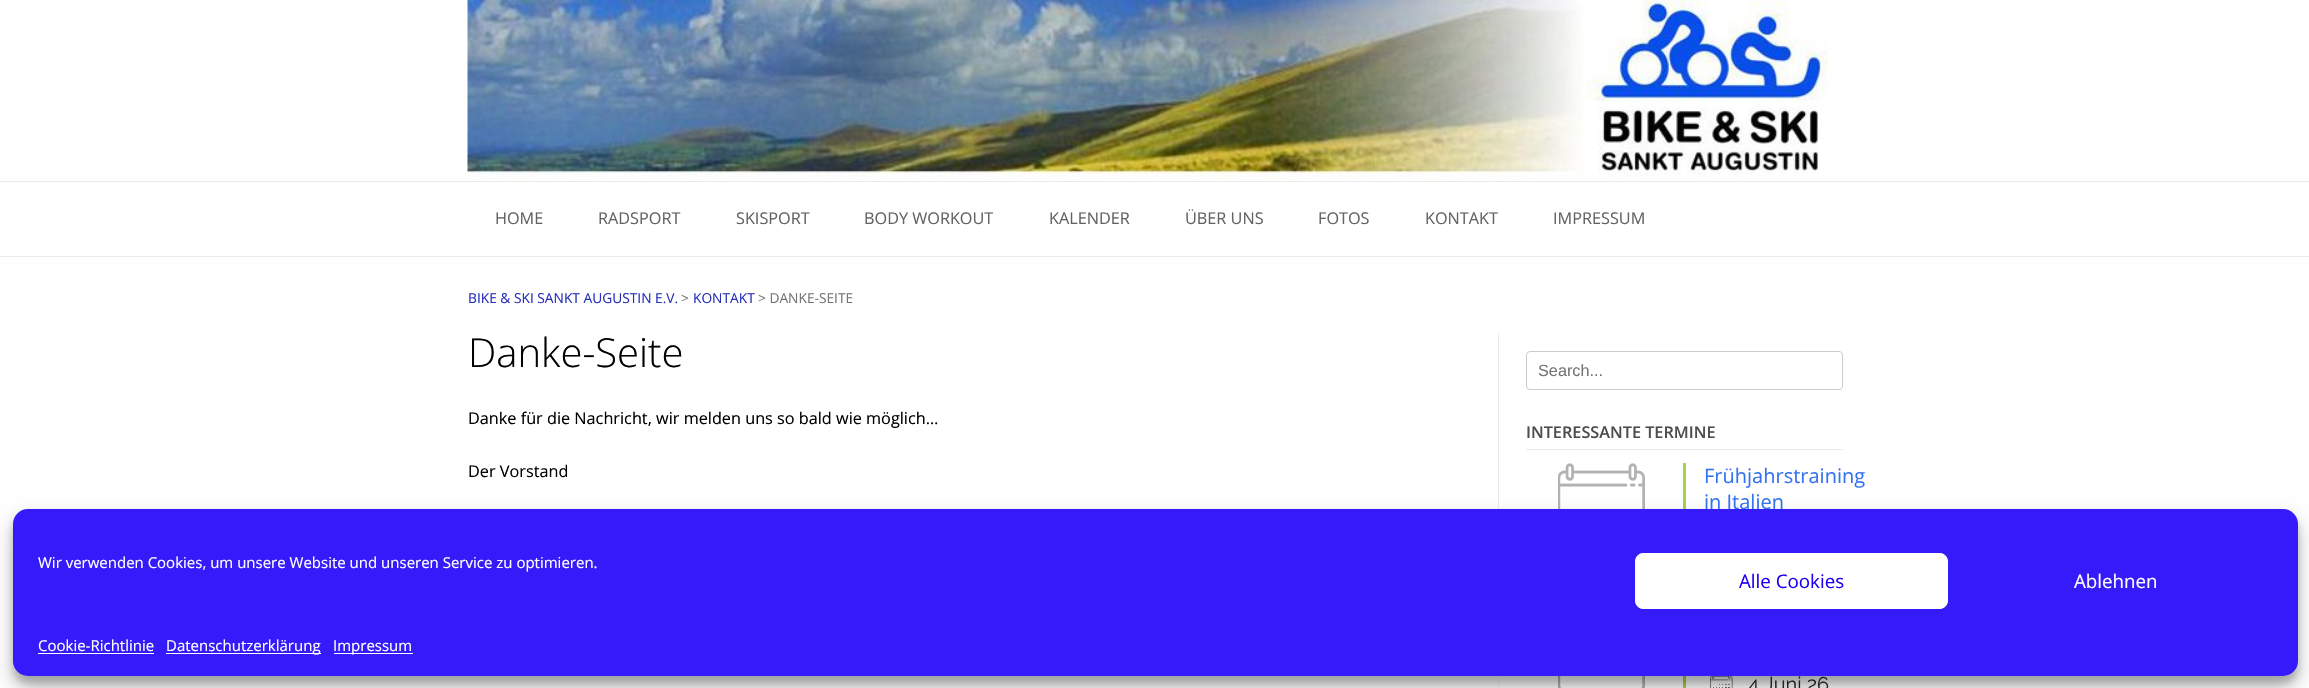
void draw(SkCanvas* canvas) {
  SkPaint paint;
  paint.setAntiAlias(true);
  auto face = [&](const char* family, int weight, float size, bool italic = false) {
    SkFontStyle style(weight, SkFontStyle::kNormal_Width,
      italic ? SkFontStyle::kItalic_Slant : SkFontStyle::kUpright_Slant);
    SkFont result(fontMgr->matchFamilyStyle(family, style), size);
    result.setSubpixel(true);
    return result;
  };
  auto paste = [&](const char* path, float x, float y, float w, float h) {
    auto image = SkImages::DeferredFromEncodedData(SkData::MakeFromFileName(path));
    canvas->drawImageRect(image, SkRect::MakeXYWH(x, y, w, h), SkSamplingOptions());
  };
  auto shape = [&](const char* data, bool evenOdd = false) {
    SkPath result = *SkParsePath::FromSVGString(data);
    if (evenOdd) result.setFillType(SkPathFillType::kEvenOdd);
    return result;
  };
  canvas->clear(0xffffffff);
  paint.setColor(0xffebebeb);
  canvas->drawRect(SkRect::MakeXYWH(0, 256, 2309, 1), paint);
  paste("img/1.png", 467, 0, 1361, 180);
  canvas->drawRect(SkRect::MakeXYWH(0, 181, 2309, 1), paint);
  paint.setColor(0xfff5f5f5);
  canvas->drawRect(SkRect::MakeXYWH(1498, 333, 1, 176), paint);
  paint.setColor(0x0a000000);
  canvas->drawPath(shape("M1498 333V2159H1841H1499V333Z"), paint);
  paint.setStroke(true);
  paint.setStrokeWidth(1);
  paint.setColor(0xffcccccc);
  canvas->drawRoundRect(SkRect::MakeXYWH(1526.5f, 351.5f, 316, 38), 3.5f, 3.5f, paint);
  paint.setStroke(false);
  paint.setColor(0xffeaeaea);
  canvas->drawRect(SkRect::MakeXYWH(1526, 449, 317, 1), paint);
  paste("img/2.png", 1558, 463, 87, 46);
  paint.setColor(0xffa8d144);
  canvas->drawRect(SkRect::MakeXYWH(1683, 463, 3, 46), paint);
  paste("img/3.png", 1558, 676, 87, 12);
  canvas->drawRect(SkRect::MakeXYWH(1683, 676, 3, 12), paint);
  paste("img/4.png", 1710, 676, 23, 12);
  paint.setColor(0x3b000000);
  paint.setMaskFilter(SkMaskFilter::MakeBlur(kNormal_SkBlurStyle, 4));
  canvas->drawRoundRect(SkRect::MakeXYWH(13, 516, 2285, 168), 15, 15, paint);
  paint.setMaskFilter(nullptr);
  paint.setColor(0x30000000);
  paint.setMaskFilter(SkMaskFilter::MakeBlur(kNormal_SkBlurStyle, 12.5f));
  canvas->drawRoundRect(SkRect::MakeXYWH(13, 521, 2285, 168), 15, 15, paint);
  paint.setMaskFilter(nullptr);
  auto f0 = face("Open Sans", 400, 16.25f);
  paint.setColor(0xff626262);
  {
    const struct { const char* s; float x, y; } items[] = {
      {"HOME", 495, 224},
      {"RADSPORT", 598, 224},
      {"SKISPORT", 736, 224},
      {"BODY WORKOUT", 864, 224},
      {"KALENDER", 1049, 224},
      {"ÜBER UNS", 1185, 224},
      {"FOTOS", 1318, 224},
      {"KONTAKT", 1425, 224},
      {"IMPRESSUM", 1553, 224},
    };
    for (auto [s, x, y] : items) {
      canvas->drawString(s, x, y, f0, paint);
    }
  }
  auto f1 = face("Open Sans", 400, 13.75f);
  paint.setColor(0xff2730ba);
  canvas->drawString("BIKE & SKI SANKT AUGUSTIN E.V.", 468, 303, f1, paint);
  paint.setColor(0xff757575);
  canvas->drawString(">", 681, 303, f1, paint);
  paint.setColor(0xff2730ba);
  canvas->drawString("KONTAKT", 693, 303, f1, paint);
  paint.setColor(0xff757575);
  canvas->drawString("> DANKE-SEITE", 758, 303, f1, paint);
  auto f2 = face("Open Sans", 300, 40);
  paint.setColor(0xff000000);
  canvas->drawString("Danke-Seite", 468, 367, f2, paint);
  canvas->drawString("Danke für die Nachricht, wir melden uns so bald wie möglich…", 468, 424, f0, paint);
  canvas->drawString("Der Vorstand", 468, 477, f0, paint);
  auto f3 = face("Liberation Sans", 400, 16.25f);
  paint.setColor(0xff757575);
  canvas->drawString("Search...", 1538, 376, f3, paint);
  auto f4 = face("Open Sans", 600, 16.25f);
  paint.setColor(0xff4d4d4d);
  canvas->drawString("INTERESSANTE TERMINE", 1526, 438, f4, paint);
  auto f5 = face("Open Sans", 400, 20);
  paint.setColor(0xff3372f0);
  canvas->drawString("Frühjahrstraining", 1704, 483, f5, paint);
  canvas->drawString("in Italien", 1704, 509, f5, paint);
  auto f6 = face("Raleway", 400, 20);
  paint.setColor(0xff212121);
  canvas->drawString("4 Juni 26", 1748, 691, f6, paint);
  paint.setColor(0xff351bf9);
  canvas->drawRoundRect(SkRect::MakeXYWH(13, 509, 2285, 167), 15, 15, paint);
  auto f7 = face("Open Sans", 400, 15);
  paint.setColor(0xffffffff);
  canvas->drawString("Wir verwenden Cookies, um unsere Website und unseren Service zu optimieren.", 38, 568, f7, paint);
  canvas->drawRoundRect(SkRect::MakeXYWH(1635.5f, 553.5f, 312, 55), 7.5f, 7.5f, paint);
  paint.setStroke(true);
  canvas->drawRoundRect(SkRect::MakeXYWH(1635.5f, 553.5f, 312, 55), 7.5f, 7.5f, paint);
  auto f8 = face("Open Sans", 400, 18.75f);
  paint.setStroke(false);
  paint.setColor(0xff1c00f4);
  canvas->drawString("Alle Cookies", 1739, 588, f8, paint);
  paint.setColor(0xffffffff);
  canvas->drawString("Ablehnen", 2074, 588, f8, paint);
  canvas->drawString("Cookie-Richtlinie", 38, 651, f7, paint);
  canvas->drawRect(SkRect::MakeXYWH(38, 653, 116, 1), paint);
  canvas->drawRect(SkRect::MakeXYWH(166, 653, 155, 1), paint);
  canvas->drawString("Datenschutzerklärung", 166, 651, f7, paint);
  canvas->drawRect(SkRect::MakeXYWH(334, 653, 79, 1), paint);
  canvas->drawString("Impressum", 333, 651, f7, paint);
}
